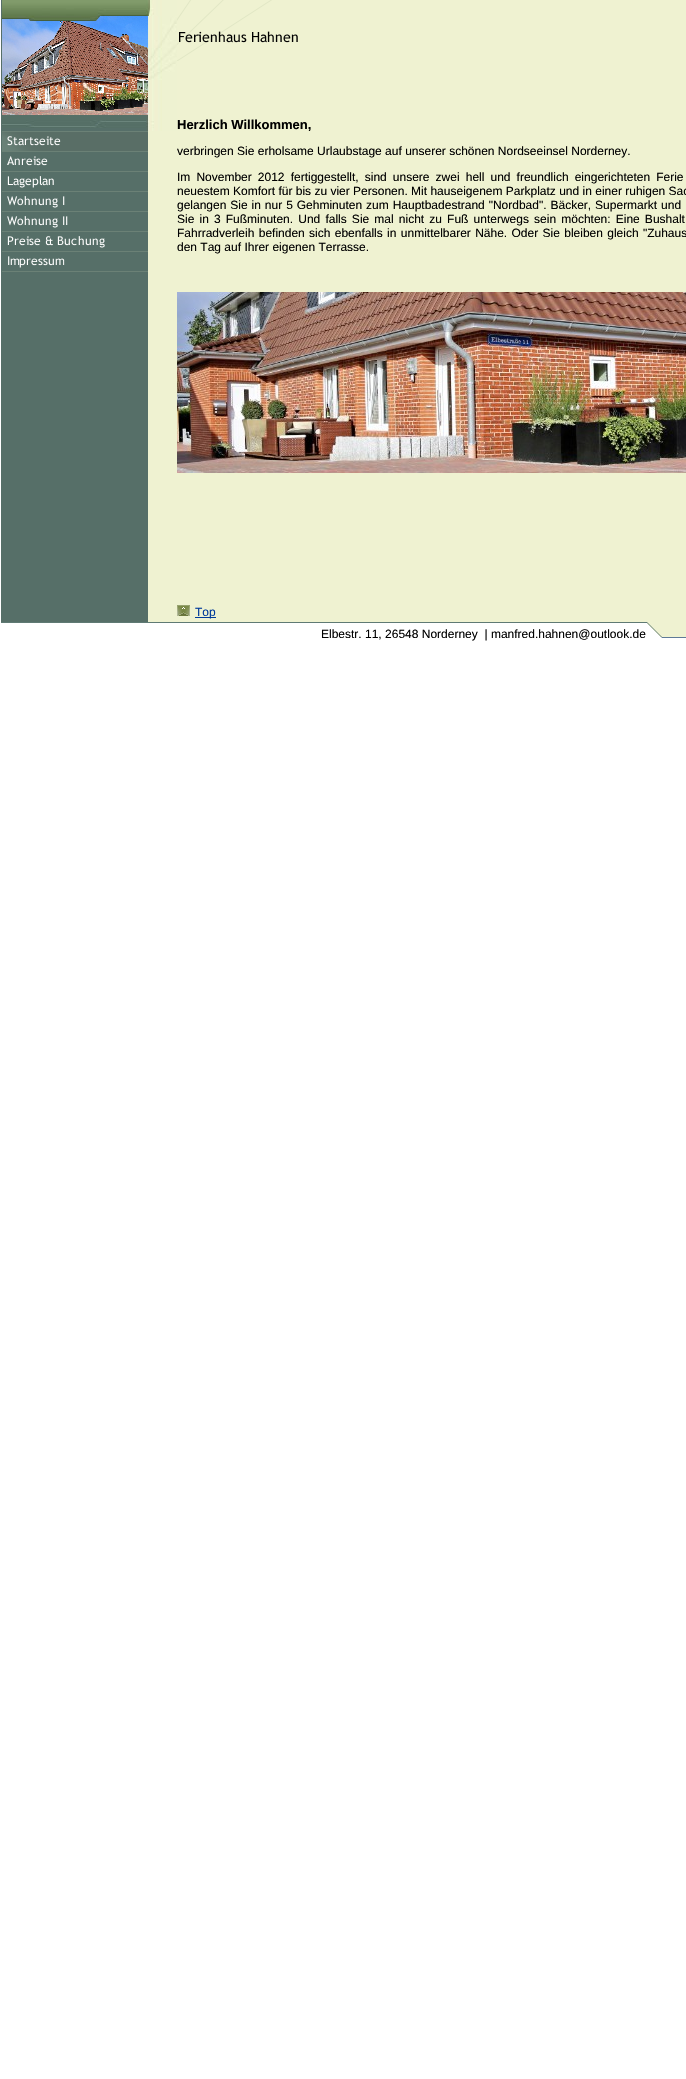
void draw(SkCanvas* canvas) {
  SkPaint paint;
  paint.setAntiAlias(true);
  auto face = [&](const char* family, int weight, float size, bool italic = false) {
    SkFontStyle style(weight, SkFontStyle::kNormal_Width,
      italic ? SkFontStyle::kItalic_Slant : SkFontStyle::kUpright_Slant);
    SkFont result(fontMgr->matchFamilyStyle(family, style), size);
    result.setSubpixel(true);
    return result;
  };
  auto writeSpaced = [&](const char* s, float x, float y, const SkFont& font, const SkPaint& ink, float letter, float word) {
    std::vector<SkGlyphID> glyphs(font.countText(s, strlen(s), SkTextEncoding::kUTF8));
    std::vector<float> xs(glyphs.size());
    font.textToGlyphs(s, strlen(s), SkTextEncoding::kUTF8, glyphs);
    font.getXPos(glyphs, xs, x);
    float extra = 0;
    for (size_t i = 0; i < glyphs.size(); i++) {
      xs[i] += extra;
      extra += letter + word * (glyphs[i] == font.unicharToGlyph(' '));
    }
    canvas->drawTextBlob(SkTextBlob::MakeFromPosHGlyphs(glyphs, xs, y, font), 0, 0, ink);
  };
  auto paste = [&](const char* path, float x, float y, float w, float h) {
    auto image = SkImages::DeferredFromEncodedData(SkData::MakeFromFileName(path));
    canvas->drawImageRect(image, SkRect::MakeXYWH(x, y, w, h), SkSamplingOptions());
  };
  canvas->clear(0xffffffff);
  paste("img/1.png", 2, 131, 175, 471);
  paint.setColor(0xff566f68);
  canvas->drawRect(SkRect::MakeXYWH(1, 0, 1, 622), paint);
  paste("img/2.png", 2, 0, 175, 131);
  paste("img/3.png", 2, 131, 146, 20);
  paste("img/4.png", 2, 151, 146, 15);
  paste("img/5.png", 2, 171, 146, 17);
  paste("img/6.png", 2, 191, 146, 17);
  paste("img/7.png", 2, 211, 146, 17);
  paste("img/8.png", 2, 231, 146, 17);
  paste("img/9.png", 2, 251, 146, 17);
  paint.setColor(0xff6b8176);
  canvas->drawRect(SkRect::MakeXYWH(2, 271, 146, 1), paint);
  paint.setColor(0xffeff2d1);
  canvas->drawRect(SkRect::MakeXYWH(177, 0, 509, 622), paint);
  paste("img/10.png", 177, 0, 95, 61);
  paste("img/11.png", 179, 31, 119, 12);
  paste("img/12.png", 177, 292, 509, 181);
  paste("img/13.png", 2, 602, 175, 20);
  paste("img/14.png", 177, 605, 13, 11);
  paint.setColor(0xff003a9a);
  canvas->drawRect(SkRect::MakeXYWH(195, 617, 21, 1), paint);
  paint.setColor(0xff5f7a74);
  canvas->drawRect(SkRect::MakeXYWH(1, 622, 646, 1), paint);
  paste("img/15.png", 647, 622, 39, 16);
  auto f0 = face("Liberation Sans", 700, 13);
  paint.setColor(0xff000000);
  canvas->drawString("Herzlich Willkommen,", 177, 129, f0, paint);
  auto f1 = face("Liberation Sans", 400, 12);
  canvas->drawString("verbringen Sie erholsame Urlaubstage auf unserer schönen Nordseeinsel Norderney.", 177, 155, f1, paint);
  writeSpaced("Im November 2012 fertiggestellt, sind unsere zwei hell und freundlich eingerichteten Ferie", 177, 181, f1, paint, 0, 2.75f);
  canvas->drawString("neuestem Komfort für bis zu vier Personen. Mit hauseigenem Parkplatz und in einer ruhigen Sac", 177, 195, f1, paint);
  writeSpaced("gelangen Sie in nur 5 Gehminuten zum Hauptbadestrand \"Nordbad\". Bäcker, Supermarkt und", 177, 209, f1, paint, 0, 0.6f);
  writeSpaced("Sie in 3 Fußminuten. Und falls Sie mal nicht zu Fuß unterwegs sein möchten: Eine Bushalt", 177, 223, f1, paint, 0, 1.8f);
  writeSpaced("Fahrradverleih befinden sich ebenfalls in unmittelbarer Nähe. Oder Sie bleiben gleich \"Zuhaus", 177, 237, f1, paint, 0, 1);
  canvas->drawString("den Tag auf Ihrer eigenen Terrasse.", 177, 251, f1, paint);
  paint.setColor(0xff003a9a);
  canvas->drawString("Top", 195, 616, f1, paint);
  paint.setColor(0xff000000);
  canvas->drawString("Elbestr. 11, 26548 Norderney  | manfred.hahnen@outlook.de", 321, 638, f1, paint);
}
